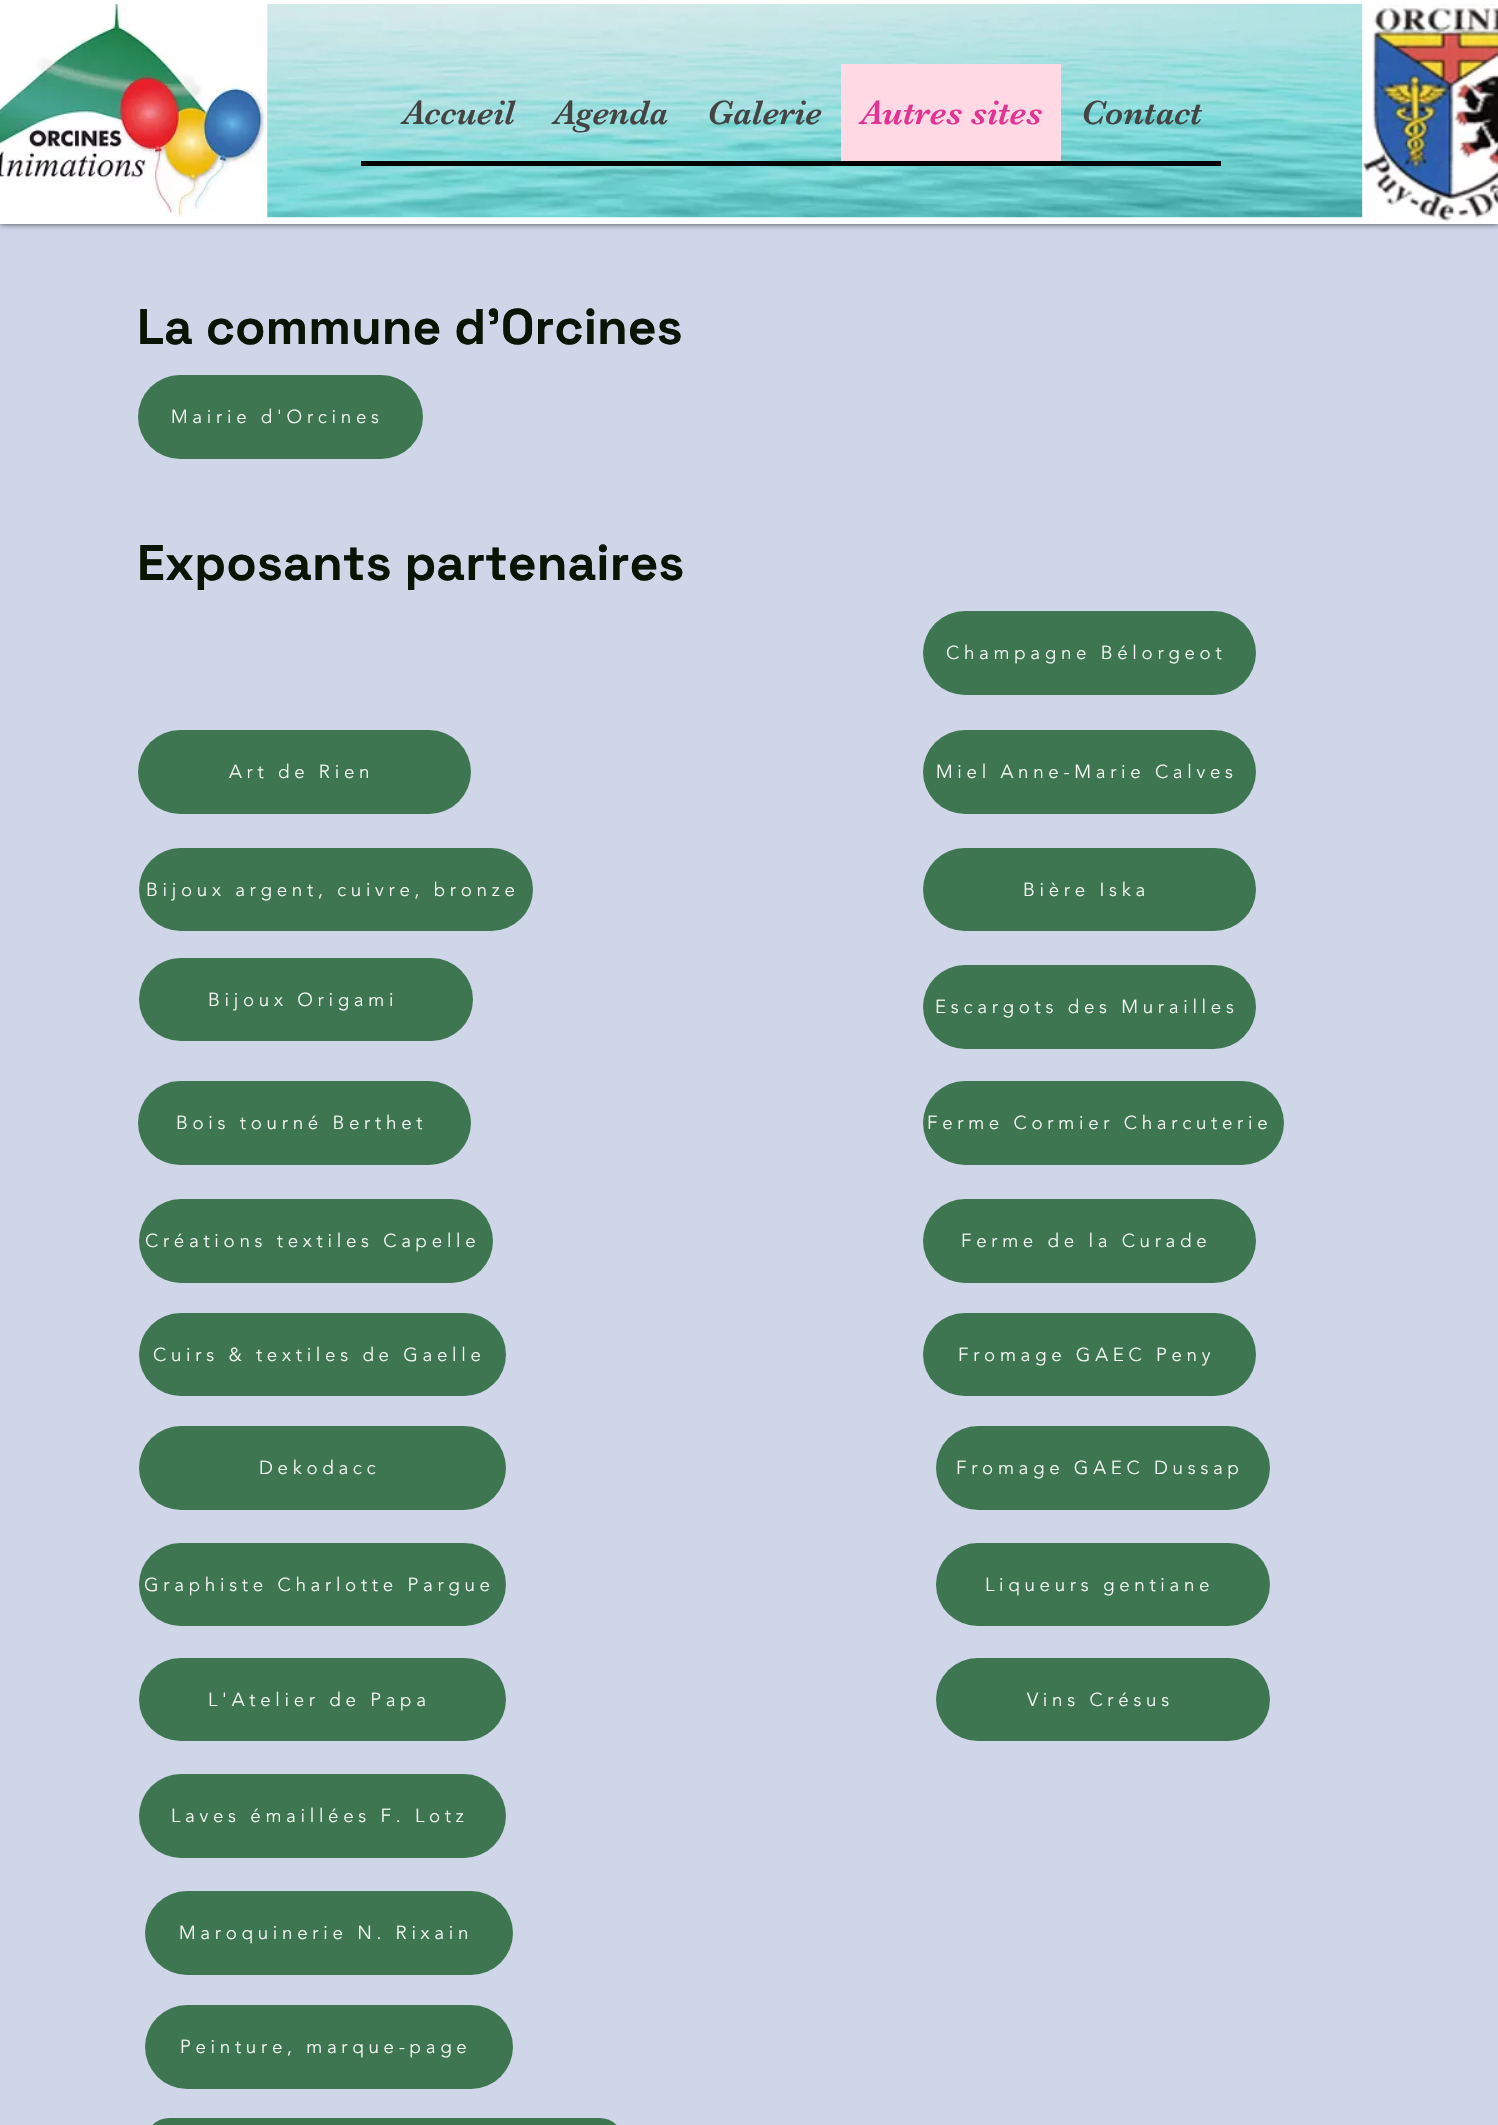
void draw(SkCanvas* canvas) {
  SkPaint paint;
  paint.setAntiAlias(true);
  auto face = [&](const char* family, int weight, float size, bool italic = false) {
    SkFontStyle style(weight, SkFontStyle::kNormal_Width,
      italic ? SkFontStyle::kItalic_Slant : SkFontStyle::kUpright_Slant);
    SkFont result(fontMgr->matchFamilyStyle(family, style), size);
    result.setSubpixel(true);
    return result;
  };
  auto writeSpaced = [&](const char* s, float x, float y, const SkFont& font, const SkPaint& ink, float letter, float word) {
    std::vector<SkGlyphID> glyphs(font.countText(s, strlen(s), SkTextEncoding::kUTF8));
    std::vector<float> xs(glyphs.size());
    font.textToGlyphs(s, strlen(s), SkTextEncoding::kUTF8, glyphs);
    font.getXPos(glyphs, xs, x);
    float extra = 0;
    for (size_t i = 0; i < glyphs.size(); i++) {
      xs[i] += extra;
      extra += letter + word * (glyphs[i] == font.unicharToGlyph(' '));
    }
    canvas->drawTextBlob(SkTextBlob::MakeFromPosHGlyphs(glyphs, xs, y, font), 0, 0, ink);
  };
  auto paste = [&](const char* path, float x, float y, float w, float h) {
    auto image = SkImages::DeferredFromEncodedData(SkData::MakeFromFileName(path));
    canvas->drawImageRect(image, SkRect::MakeXYWH(x, y, w, h), SkSamplingOptions());
  };
  auto shape = [&](const char* data, bool evenOdd = false) {
    SkPath result = *SkParsePath::FromSVGString(data);
    if (evenOdd) result.setFillType(SkPathFillType::kEvenOdd);
    return result;
  };
  canvas->clear(0xffffffff);
  paint.setColor(0xffcfd6e8);
  canvas->drawRect(SkRect::MakeXYWH(0, 224, 1498, 1901), paint);
  canvas->save();
  canvas->clipPath(shape("M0 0H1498V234H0ZM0 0H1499V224H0Z", true), true);
  paint.setColor(0xb3000000);
  paint.setMaskFilter(SkMaskFilter::MakeBlur(kNormal_SkBlurStyle, 3));
  canvas->drawRect(SkRect::MakeXYWH(0, 0, 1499, 224), paint);
  paint.setMaskFilter(nullptr);
  canvas->restore();
  paint.setColor(0x99ffffff);
  canvas->drawRect(SkRect::MakeXYWH(0, 223, 1498, 1), paint);
  paste("img/2.png", 138, 3, 1225, 215);
  paste("img/1.png", 0, 3, 268, 215);
  paint.setColor(0xff000000);
  canvas->drawPath(shape("M361 69V166H1221V161H361Z"), paint);
  paint.setColor(0xffffd9e4);
  canvas->drawRect(SkRect::MakeXYWH(841, 64, 220, 97), paint);
  paste("img/3.png", 1362, 4, 136, 218);
  paint.setColor(0xff3f7652);
  canvas->drawRoundRect(SkRect::MakeXYWH(138, 375, 285, 84), 42, 42, paint);
  canvas->drawRoundRect(SkRect::MakeXYWH(923, 611, 333, 84), 42, 42, paint);
  canvas->drawRoundRect(SkRect::MakeXYWH(138, 730, 333, 84), 42, 42, paint);
  canvas->drawRoundRect(SkRect::MakeXYWH(923, 730, 333, 84), 42, 42, paint);
  canvas->drawRoundRect(SkRect::MakeXYWH(139, 848, 394, 83), 41.5f, 41.5f, paint);
  canvas->drawRoundRect(SkRect::MakeXYWH(923, 848, 333, 83), 41.5f, 41.5f, paint);
  canvas->drawRoundRect(SkRect::MakeXYWH(139, 958, 334, 83), 41.5f, 41.5f, paint);
  canvas->drawRoundRect(SkRect::MakeXYWH(923, 965, 333, 84), 42, 42, paint);
  canvas->drawRoundRect(SkRect::MakeXYWH(138, 1081, 333, 84), 42, 42, paint);
  canvas->drawRoundRect(SkRect::MakeXYWH(923, 1081, 361, 84), 42, 42, paint);
  canvas->drawRoundRect(SkRect::MakeXYWH(139, 1199, 354, 84), 42, 42, paint);
  canvas->drawRoundRect(SkRect::MakeXYWH(923, 1199, 333, 84), 42, 42, paint);
  canvas->drawRoundRect(SkRect::MakeXYWH(139, 1313, 367, 83), 41.5f, 41.5f, paint);
  canvas->drawRoundRect(SkRect::MakeXYWH(923, 1313, 333, 83), 41.5f, 41.5f, paint);
  canvas->drawRoundRect(SkRect::MakeXYWH(139, 1426, 367, 84), 42, 42, paint);
  canvas->drawRoundRect(SkRect::MakeXYWH(936, 1426, 334, 84), 42, 42, paint);
  canvas->drawRoundRect(SkRect::MakeXYWH(139, 1543, 367, 83), 41.5f, 41.5f, paint);
  canvas->drawRoundRect(SkRect::MakeXYWH(936, 1543, 334, 83), 41.5f, 41.5f, paint);
  canvas->drawRoundRect(SkRect::MakeXYWH(139, 1658, 367, 83), 41.5f, 41.5f, paint);
  canvas->drawRoundRect(SkRect::MakeXYWH(936, 1658, 334, 83), 41.5f, 41.5f, paint);
  canvas->drawRoundRect(SkRect::MakeXYWH(139, 1774, 367, 84), 42, 42, paint);
  canvas->drawRoundRect(SkRect::MakeXYWH(145, 1891, 368, 84), 42, 42, paint);
  canvas->drawRoundRect(SkRect::MakeXYWH(145, 2005, 368, 84), 42, 42, paint);
  canvas->drawRoundRect(SkRect::MakeXYWH(145, 2118, 479, 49), 41.5f, 41.5f, paint);
  auto f0 = face("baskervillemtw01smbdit", 400, 35);
  paint.setColor(0xff444444);
  {
    const struct { const char* s; float x, y; } items[] = {
      {"Accueil", 403, 124},
      {"Agenda", 554, 124},
      {"Galerie", 707, 124},
    };
    for (auto [s, x, y] : items) {
      canvas->drawString(s, x, y, f0, paint);
    }
  }
  paint.setColor(0xffe33292);
  canvas->drawString("Autres sites", 861, 124, f0, paint);
  paint.setColor(0xff444444);
  canvas->drawString("Contact", 1081, 124, f0, paint);
  auto f1 = face("Space Grotesk", 700, 50);
  paint.setColor(0xff091405);
  canvas->drawString("La commune d'Orcines", 137, 344, f1, paint);
  auto f2 = face("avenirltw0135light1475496", 300, 18.75f);
  paint.setColor(0xfff6f9f5);
  writeSpaced("Mairie d'Orcines", 171, 423, f2, paint, 4.7f, 0);
  paint.setColor(0xff091405);
  canvas->drawString("Exposants partenaires", 137, 580, f1, paint);
  paint.setColor(0xfff6f9f5);
  {
    const struct { const char* s; float x, y; } items[] = {
      {"Champagne Bélorgeot", 946, 659},
      {"Art de Rien", 229, 778},
      {"Miel Anne-Marie Calves", 936, 778},
      {"Bijoux argent, cuivre, bronze", 146, 896},
      {"Bière Iska", 1023, 896},
      {"Bijoux Origami", 208, 1006},
      {"Escargots des Murailles", 935, 1013},
      {"Bois tourné Berthet", 176, 1129},
      {"Ferme Cormier Charcuterie", 927, 1129},
      {"Créations textiles Capelle", 145, 1247},
      {"Ferme de la Curade", 961, 1247},
      {"Cuirs & textiles de Gaelle", 153, 1361},
      {"Fromage GAEC Peny", 958, 1361},
      {"Dekodacc", 259, 1474},
      {"Fromage GAEC Dussap", 956, 1474},
      {"Graphiste Charlotte Pargue", 144, 1591},
      {"Liqueurs gentiane", 985, 1591},
      {"L'Atelier de Papa", 208, 1706},
      {"Vins Crésus", 1027, 1706},
      {"Laves émaillées F. Lotz", 171, 1822},
      {"Maroquinerie N. Rixain", 179, 1939},
      {"Peinture, marque-page", 180, 2053},
    };
    for (auto [s, x, y] : items) {
      writeSpaced(s, x, y, f2, paint, 4.7f, 0);
    }
  }
}
